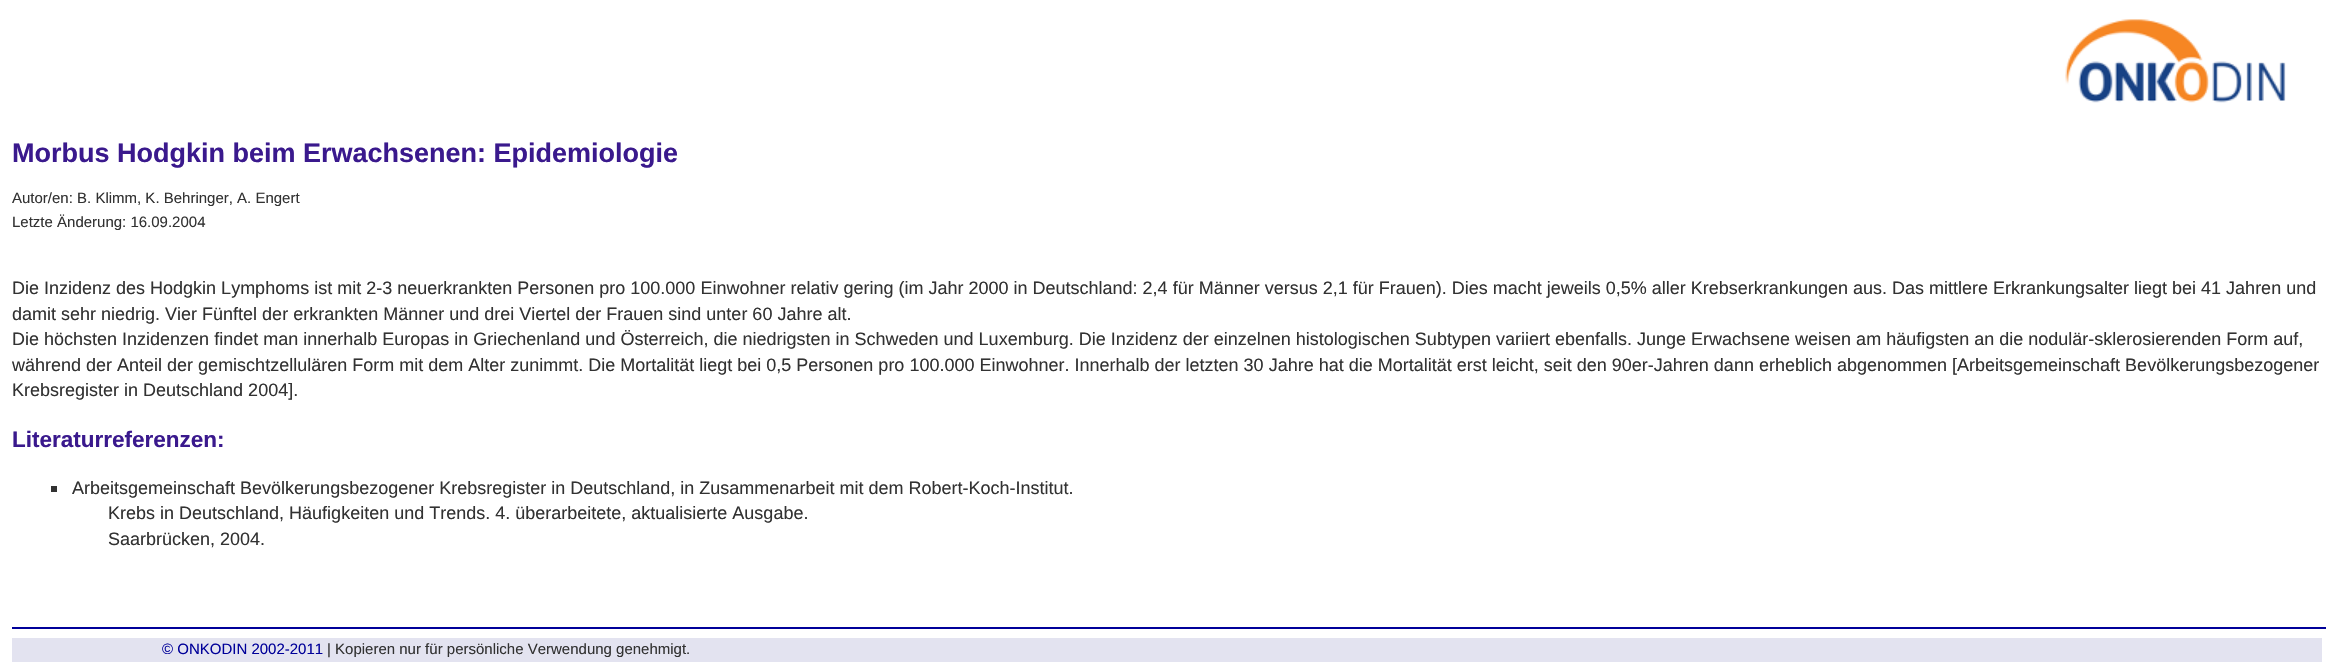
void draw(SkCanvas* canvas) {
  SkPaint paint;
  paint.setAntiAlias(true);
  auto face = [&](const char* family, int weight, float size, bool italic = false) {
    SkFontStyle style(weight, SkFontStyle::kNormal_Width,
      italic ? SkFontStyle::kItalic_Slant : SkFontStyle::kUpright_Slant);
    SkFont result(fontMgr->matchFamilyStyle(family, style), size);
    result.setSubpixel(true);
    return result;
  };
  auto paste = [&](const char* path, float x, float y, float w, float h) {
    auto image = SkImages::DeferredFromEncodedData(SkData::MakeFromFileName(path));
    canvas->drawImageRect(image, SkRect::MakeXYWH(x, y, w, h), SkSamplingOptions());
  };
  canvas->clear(0xffffffff);
  paste("img/1.png", 2065, 19, 221, 84);
  {
    const struct { float x, y, w, h; SkColor color; } items[] = {
      {51, 486, 6, 6, 0xff323232},
      {12, 627, 2314, 2, 0xff000099},
      {12, 638, 2310, 24, 0xffe3e3f0},
    };
    for (auto [x, y, w, h, color] : items) {
      paint.setColor(color);
      canvas->drawRect(SkRect::MakeXYWH(x, y, w, h), paint);
    }
  }
  auto f0 = face("Liberation Sans", 700, 27);
  paint.setColor(0xff3a198d);
  canvas->drawString("Morbus Hodgkin beim Erwachsenen: Epidemiologie", 12, 162, f0, paint);
  auto f1 = face("Liberation Sans", 400, 15);
  paint.setColor(0xff323232);
  canvas->drawString("Autor/en: B. Klimm, K. Behringer, A. Engert", 12, 203, f1, paint);
  canvas->drawString("Letzte Änderung: 16.09.2004", 12, 227, f1, paint);
  auto f2 = face("Liberation Sans", 400, 18);
  {
    const struct { const char* s; float x, y; } items[] = {
      {"Die Inzidenz des Hodgkin Lymphoms ist mit 2-3 neuerkrankten Personen pro 100.000 Einwohner relativ gering (im Jahr 2000 in Deutschland: 2,4 für Männer versus 2,1 für Frauen). Dies macht jeweils 0,5% aller Krebserkrankungen aus. Das mittlere Erkrankungsalter liegt bei 41 Jahren und", 12, 294},
      {"damit sehr niedrig. Vier Fünftel der erkrankten Männer und drei Viertel der Frauen sind unter 60 Jahre alt.", 12, 320},
      {"Die höchsten Inzidenzen findet man innerhalb Europas in Griechenland und Österreich, die niedrigsten in Schweden und Luxemburg. Die Inzidenz der einzelnen histologischen Subtypen variiert ebenfalls. Junge Erwachsene weisen am häufigsten an die nodulär-sklerosierenden Form auf,", 12, 345},
      {"während der Anteil der gemischtzellulären Form mit dem Alter zunimmt. Die Mortalität liegt bei 0,5 Personen pro 100.000 Einwohner. Innerhalb der letzten 30 Jahre hat die Mortalität erst leicht, seit den 90er-Jahren dann erheblich abgenommen [Arbeitsgemeinschaft Bevölkerungsbezogener", 12, 371},
      {"Krebsregister in Deutschland 2004].", 12, 396},
    };
    for (auto [s, x, y] : items) {
      canvas->drawString(s, x, y, f2, paint);
    }
  }
  auto f3 = face("Liberation Sans", 700, 22.5f);
  paint.setColor(0xff3a198d);
  canvas->drawString("Literaturreferenzen:", 12, 447, f3, paint);
  paint.setColor(0xff323232);
  {
    const struct { const char* s; float x, y; } items[] = {
      {"Arbeitsgemeinschaft Bevölkerungsbezogener Krebsregister in Deutschland, in Zusammenarbeit mit dem Robert-Koch-Institut.", 72, 494},
      {"Krebs in Deutschland, Häufigkeiten und Trends. 4. überarbeitete, aktualisierte Ausgabe.", 108, 519},
      {"Saarbrücken, 2004.", 108, 545},
    };
    for (auto [s, x, y] : items) {
      canvas->drawString(s, x, y, f2, paint);
    }
  }
  paint.setColor(0xff000099);
  canvas->drawString("© ONKODIN 2002-2011", 162, 654, f1, paint);
  paint.setColor(0xff323232);
  canvas->drawString("| Kopieren nur für persönliche Verwendung genehmigt.", 327, 654, f1, paint);
}
